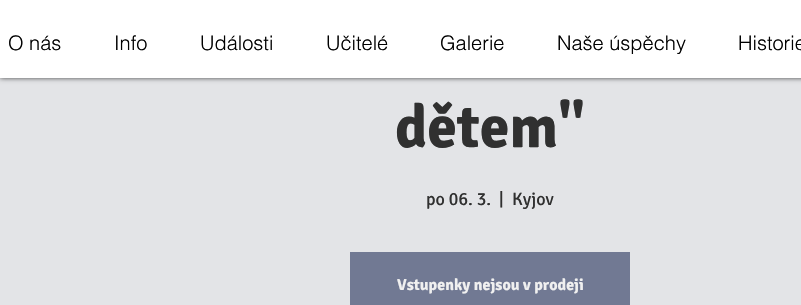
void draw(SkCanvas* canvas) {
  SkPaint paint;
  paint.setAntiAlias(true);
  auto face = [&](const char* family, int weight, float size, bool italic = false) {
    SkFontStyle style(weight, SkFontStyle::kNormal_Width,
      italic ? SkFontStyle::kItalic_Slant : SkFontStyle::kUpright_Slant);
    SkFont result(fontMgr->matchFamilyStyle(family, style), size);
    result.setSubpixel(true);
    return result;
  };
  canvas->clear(0xffe3e4e7);
  paint.setColor(0xb3000000);
  paint.setMaskFilter(SkMaskFilter::MakeBlur(kNormal_SkBlurStyle, 2.5f));
  canvas->drawRect(SkRect::MakeXYWH(0, 0, 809, 78), paint);
  paint.setMaskFilter(nullptr);
  paint.setColor(0xffffffff);
  canvas->drawRect(SkRect::MakeXYWH(0, 0, 801, 78), paint);
  paint.setColor(0xff717993);
  canvas->drawRect(SkRect::MakeXYWH(350, 252, 280, 53), paint);
  auto f0 = face("helvetica", 300, 20);
  paint.setColor(0xff000000);
  {
    const struct { const char* s; float x, y; } items[] = {
      {"O nás", 8, 50},
      {"Info", 114, 50},
      {"Události", 200, 50},
      {"Učitelé", 326, 50},
      {"Galerie", 440, 50},
      {"Naše úspěchy", 557, 50},
      {"Historie", 738, 50},
    };
    for (auto [s, x, y] : items) {
      canvas->drawString(s, x, y, f0, paint);
    }
  }
  auto f1 = face("Signika", 700, 60);
  paint.setColor(0xff303030);
  canvas->drawString("dětem\"", 395, 147, f1, paint);
  auto f2 = face("Signika", 400, 18);
  {
    const struct { const char* s; float x, y; } items[] = {
      {"po 06. 3.", 426, 205},
      {"|", 499, 205},
      {"Kyjov", 512, 205},
    };
    for (auto [s, x, y] : items) {
      canvas->drawString(s, x, y, f2, paint);
    }
  }
  auto f3 = face("Signika", 700, 16);
  paint.setColor(0xfff0f0f0);
  canvas->drawString("Vstupenky nejsou v prodeji", 397, 290, f3, paint);
}
